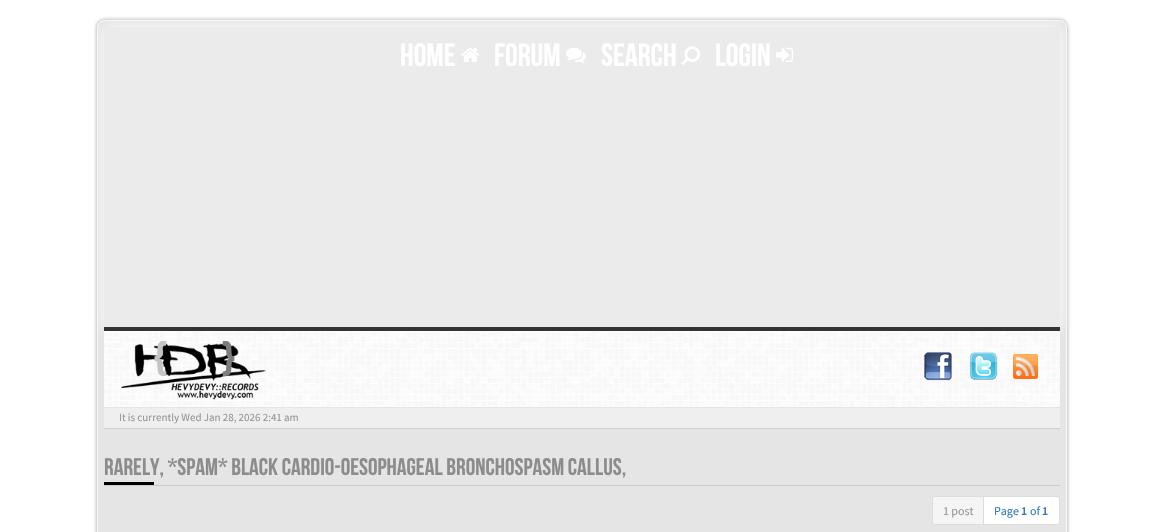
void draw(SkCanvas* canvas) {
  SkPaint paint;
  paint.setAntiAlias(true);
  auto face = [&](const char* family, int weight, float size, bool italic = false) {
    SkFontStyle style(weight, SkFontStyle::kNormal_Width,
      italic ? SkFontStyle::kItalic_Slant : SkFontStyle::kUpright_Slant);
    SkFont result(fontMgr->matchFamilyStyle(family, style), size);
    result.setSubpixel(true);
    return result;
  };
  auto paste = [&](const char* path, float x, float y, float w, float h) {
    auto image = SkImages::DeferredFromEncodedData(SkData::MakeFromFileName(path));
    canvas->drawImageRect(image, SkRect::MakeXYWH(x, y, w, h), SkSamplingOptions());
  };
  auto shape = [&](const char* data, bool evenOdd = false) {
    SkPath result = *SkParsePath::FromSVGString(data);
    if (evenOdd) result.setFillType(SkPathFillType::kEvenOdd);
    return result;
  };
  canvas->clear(0xffffffff);
  canvas->save();
  canvas->clipPath(shape("M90 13H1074V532H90ZM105 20H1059C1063.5 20 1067 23.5 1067 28V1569C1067 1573.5 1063.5 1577 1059 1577H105C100.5 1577 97 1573.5 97 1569V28C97 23.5 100.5 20 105 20Z", true), true);
  paint.setColor(0x80323232);
  paint.setMaskFilter(SkMaskFilter::MakeBlur(kNormal_SkBlurStyle, 2));
  canvas->drawRoundRect(SkRect::MakeXYWH(97, 20, 970, 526), 8, 8, paint);
  paint.setMaskFilter(nullptr);
  canvas->restore();
  paint.setColor(0x1a000000);
  canvas->drawRoundRect(SkRect::MakeXYWH(97, 20, 970, 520), 8, 8, paint);
  paint.setStroke(true);
  paint.setStrokeWidth(1);
  paint.setColor(0xbfffffff);
  canvas->drawRoundRect(SkRect::MakeXYWH(97.5f, 20.5f, 969, 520), 7.5f, 7.5f, paint);
  paint.setStroke(false);
  paint.setColor(0xffffffff);
  paint.setMaskFilter(SkMaskFilter::MakeBlur(kNormal_SkBlurStyle, 7));
  canvas->drawRoundRect(SkRect::MakeXYWH(104, 27, 956, 300), 4, 4, paint);
  paint.setMaskFilter(nullptr);
  paint.setColor(0xffebebeb);
  canvas->drawRoundRect(SkRect::MakeXYWH(104, 27, 956, 300), 4, 4, paint);
  paste("img/1.png", 461, 47, 18, 15);
  paste("img/2.png", 566, 47, 20, 17);
  paste("img/3.png", 681, 46, 19, 19);
  paste("img/4.png", 776, 47, 17, 15);
  paste("img/5.png", 104, 331, 956, 76);
  paint.setColor(0xff333333);
  canvas->drawRect(SkRect::MakeXYWH(104, 327, 956, 4), paint);
  paste("img/6.png", 121, 343, 145, 57);
  paste("img/7.png", 924, 352, 28, 29);
  paste("img/8.png", 970, 352, 28, 28);
  paste("img/9.png", 1013, 354, 25, 25);
  {
    const struct { float x, y, w, h; SkColor color; } items[] = {
      {104, 428, 956, 1, 0xffcfcfcf},
      {104, 408, 956, 20, 0xffefefef},
      {104, 485, 956, 1, 0xffcccccc},
      {104, 482, 50, 3, 0xff000000},
    };
    for (auto [x, y, w, h, color] : items) {
      paint.setColor(color);
      canvas->drawRect(SkRect::MakeXYWH(x, y, w, h), paint);
    }
  }
  paint.setColor(0xffffffff);
  canvas->drawPath(shape("M983.5 496.5H1057C1058.5 496.5 1059.5 497.5 1059.5 499V522C1059.5 523.5 1058.5 524.5 1057 524.5H983.5Z"), paint);
  paint.setStroke(true);
  paint.setColor(0xffdddddd);
  canvas->drawPath(shape("M983.5 496.5H1057C1058.5 496.5 1059.5 497.5 1059.5 499V522C1059.5 523.5 1058.5 524.5 1057 524.5H983.5Z"), paint);
  paint.setStroke(false);
  paint.setColor(0xfff5f5f5);
  canvas->drawPath(shape("M935 496.5H983.5V524.5H935C933.5 524.5 932.5 523.5 932.5 522V499C932.5 497.5 933.5 496.5 935 496.5Z"), paint);
  paint.setStroke(true);
  paint.setColor(0xffdddddd);
  canvas->drawPath(shape("M935 496.5H983.5V524.5H935C933.5 524.5 932.5 523.5 932.5 522V499C932.5 497.5 933.5 496.5 935 496.5Z"), paint);
  auto f0 = face("Bebas Neue", 400, 32);
  paint.setStroke(false);
  paint.setColor(0xffffffff);
  {
    const struct { const char* s; float x, y; } items[] = {
      {"HOME", 400, 66},
      {"FORUM", 494, 66},
      {"SEARCH", 601, 66},
      {"LOGIN", 715, 66},
    };
    for (auto [s, x, y] : items) {
      canvas->drawString(s, x, y, f0, paint);
    }
  }
  auto f1 = face("Bebas Neue", 400, 50);
  paint.setColor(0xffc4c4c4);
  canvas->drawString("{", 154, 376, f1, paint);
  paint.setColor(0xff7d7d7d);
  canvas->drawString("}", 222, 376, f1, paint);
  auto f2 = face("Source Sans Pro", 400, 11);
  paint.setColor(0xff979595);
  canvas->drawString("It is currently Wed Jan 28, 2026 2:41 am", 119, 421, f2, paint);
  auto f3 = face("Bebas Neue", 400, 24);
  paint.setColor(0xff8c8c8c);
  canvas->drawString("RARELY, *SPAM* BLACK CARDIO-OESOPHAGEAL BRONCHOSPASM CALLUS,", 104, 475, f3, paint);
  auto f4 = face("Source Sans Pro", 400, 12);
  paint.setColor(0xff979595);
  canvas->drawString("1 post", 943, 515, f4, paint);
  paint.setColor(0xff337ab7);
  canvas->drawString("Page", 994, 515, f4, paint);
  auto f5 = face("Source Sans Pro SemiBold", 600, 12);
  canvas->drawString("1", 1021, 515, f5, paint);
  canvas->drawString("of", 1030, 515, f4, paint);
  canvas->drawString("1", 1042, 515, f5, paint);
}
